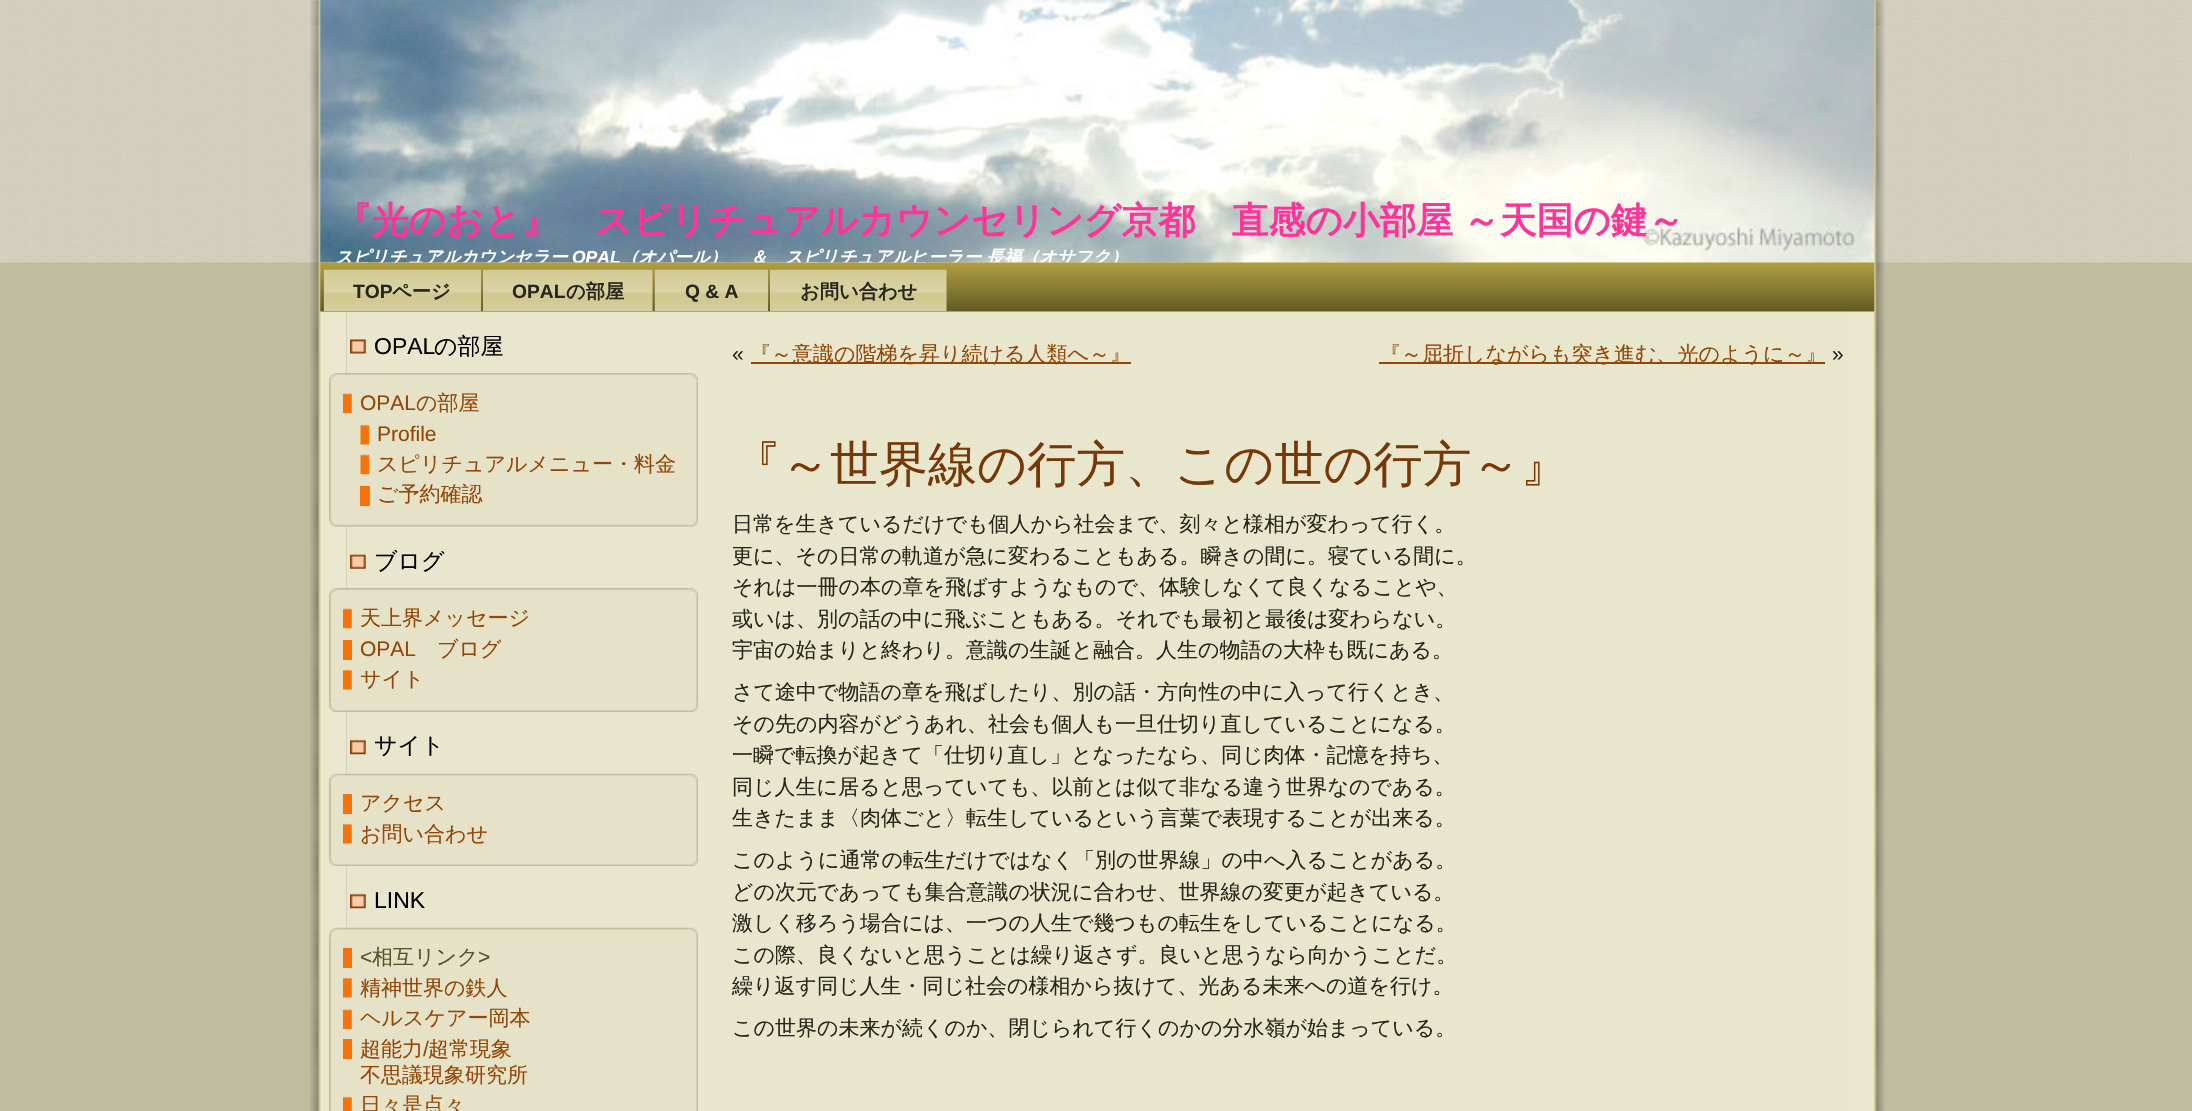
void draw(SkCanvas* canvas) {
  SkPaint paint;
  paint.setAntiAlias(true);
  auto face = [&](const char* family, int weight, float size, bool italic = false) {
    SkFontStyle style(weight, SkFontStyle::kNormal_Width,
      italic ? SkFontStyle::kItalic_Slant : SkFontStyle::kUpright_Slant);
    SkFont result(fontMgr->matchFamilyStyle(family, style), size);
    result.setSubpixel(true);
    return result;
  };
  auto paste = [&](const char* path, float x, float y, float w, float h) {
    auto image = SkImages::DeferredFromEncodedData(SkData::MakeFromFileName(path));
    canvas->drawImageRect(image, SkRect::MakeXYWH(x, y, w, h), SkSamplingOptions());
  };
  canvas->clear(0xffc0bca0);
  paste("img/1.png", 0, 0, 2192, 263);
  paste("img/2.png", 310, 0, 11, 27);
  paste("img/3.png", 1874, 0, 11, 27);
  paste("img/4.png", 310, 26, 37, 1085);
  paste("img/43.png", 1848, 26, 37, 1085);
  paint.setColor(0xffe9e6ce);
  canvas->drawRect(SkRect::MakeXYWH(347, 262, 1501, 849), paint);
  paste("img/5.png", 320, 0, 1555, 263);
  paste("img/11.png", 350, 339, 16, 15);
  paste("img/12.png", 329, 373, 9, 9);
  paste("img/14.png", 689, 373, 9, 9);
  paste("img/13.png", 338, 373, 352, 9);
  paste("img/15.png", 329, 381, 9, 137);
  paint.setColor(0xffe6e2c7);
  canvas->drawRect(SkRect::MakeXYWH(338, 382, 352, 136), paint);
  paste("img/16.png", 690, 381, 8, 137);
  paste("img/17.png", 343, 393, 9, 20);
  paste("img/18.png", 360, 424, 10, 21);
  paste("img/19.png", 360, 454, 10, 21);
  paint.setColor(0xfff4740b);
  canvas->drawRect(SkRect::MakeXYWH(360, 486, 10, 20), paint);
  paste("img/20.png", 329, 518, 9, 9);
  paste("img/22.png", 689, 518, 9, 9);
  paste("img/21.png", 338, 518, 352, 9);
  paste("img/23.png", 350, 554, 16, 15);
  paste("img/24.png", 329, 588, 9, 9);
  paste("img/26.png", 689, 588, 9, 9);
  paste("img/25.png", 338, 588, 352, 9);
  paste("img/31.png", 329, 703, 9, 9);
  paste("img/27.png", 329, 597, 9, 107);
  paste("img/33.png", 689, 703, 9, 9);
  paint.setColor(0xffe6e2c7);
  canvas->drawRect(SkRect::MakeXYWH(338, 597, 352, 107), paint);
  paste("img/28.png", 690, 597, 8, 107);
  paste("img/29.png", 343, 608, 9, 21);
  paint.setColor(0xfff4740b);
  canvas->drawRect(SkRect::MakeXYWH(343, 640, 9, 20), paint);
  paste("img/30.png", 343, 669, 9, 21);
  paste("img/32.png", 338, 704, 352, 8);
  paste("img/34.png", 350, 739, 16, 16);
  paste("img/35.png", 329, 773, 9, 10);
  paste("img/37.png", 689, 773, 9, 10);
  paste("img/36.png", 338, 773, 352, 9);
  paste("img/31.png", 329, 857, 9, 9);
  paste("img/38.png", 329, 782, 9, 76);
  paste("img/33.png", 689, 857, 9, 9);
  paint.setColor(0xffe6e2c7);
  canvas->drawRect(SkRect::MakeXYWH(338, 782, 352, 76), paint);
  paste("img/39.png", 690, 782, 8, 76);
  paint.setColor(0xfff4740b);
  canvas->drawRect(SkRect::MakeXYWH(343, 794, 9, 20), paint);
  paste("img/30.png", 343, 823, 9, 21);
  paste("img/32.png", 338, 858, 352, 8);
  paste("img/34.png", 350, 893, 16, 16);
  paste("img/35.png", 329, 927, 9, 10);
  paste("img/37.png", 689, 927, 9, 10);
  paste("img/36.png", 338, 927, 352, 9);
  paste("img/40.png", 329, 936, 9, 175);
  paint.setColor(0xffe6e2c7);
  canvas->drawRect(SkRect::MakeXYWH(338, 936, 352, 175), paint);
  paste("img/41.png", 690, 936, 8, 175);
  paint.setColor(0xfff4740b);
  canvas->drawRect(SkRect::MakeXYWH(343, 948, 9, 20), paint);
  paste("img/30.png", 343, 977, 9, 21);
  paste("img/17.png", 343, 1009, 9, 20);
  canvas->drawRect(SkRect::MakeXYWH(343, 1039, 9, 20), paint);
  paste("img/42.png", 343, 1096, 9, 15);
  paint.setColor(0xff924607);
  canvas->drawRect(SkRect::MakeXYWH(751, 362, 380, 2), paint);
  canvas->drawRect(SkRect::MakeXYWH(1379, 362, 446, 2), paint);
  auto f0 = face("WenQuanYi Zen Hei", 700, 36.75f);
  paint.setColor(0xffff3399);
  canvas->drawString("『光のおと』　スピリチュアルカウンセリング京都　直感の小部屋", 335, 233, f0, paint);
  canvas->drawString("～天国の鍵～", 1463, 233, f0, paint);
  auto f1 = face("WenQuanYi Zen Hei", 700, 17.5f, true);
  paint.setColor(0xffffffff);
  canvas->drawString("スピリチュアルカウンセラー", 335, 263, f1, paint);
  auto f2 = face("Liberation Sans", 700, 17.5f, true);
  canvas->drawString("OPAL", 572, 263, f2, paint);
  canvas->drawString("（オパール）　 ＆　スピリチュアルヒーラー 長福（オサフク）", 621, 263, f1, paint);
  paste("img/6.png", 320, 262, 1555, 50);
  paste("img/7.png", 323, 269, 159, 43);
  auto f3 = face("Liberation Sans", 700, 19.25f);
  paint.setColor(0xff28261b);
  canvas->drawString("TOP", 353, 298, f3, paint);
  auto f4 = face("WenQuanYi Zen Hei", 700, 19.25f);
  canvas->drawString("ページ", 392, 298, f4, paint);
  paste("img/8.png", 483, 269, 170, 43);
  canvas->drawString("OPAL", 512, 298, f3, paint);
  canvas->drawString("の部屋", 566, 298, f4, paint);
  paste("img/9.png", 654, 269, 115, 43);
  canvas->drawString("Q & A", 685, 298, f3, paint);
  paste("img/10.png", 770, 269, 177, 43);
  canvas->drawString("お問い合わせ", 800, 298, f4, paint);
  auto f5 = face("Liberation Sans", 400, 23);
  paint.setColor(0xff000000);
  canvas->drawString("OPAL", 374, 354, f5, paint);
  auto f6 = face("WenQuanYi Zen Hei", 500, 23);
  canvas->drawString("の部屋", 434, 354, f6, paint);
  auto f7 = face("Liberation Sans", 400, 21);
  paint.setColor(0xff924607);
  canvas->drawString("OPAL", 360, 410, f7, paint);
  auto f8 = face("WenQuanYi Zen Hei", 500, 21);
  canvas->drawString("の部屋", 416, 410, f8, paint);
  canvas->drawString("Profile", 377, 441, f7, paint);
  canvas->drawString("スピリチュアルメニュー・料金", 377, 471, f8, paint);
  canvas->drawString("ご予約確認", 377, 501, f8, paint);
  paint.setColor(0xff000000);
  canvas->drawString("ブログ", 374, 569, f6, paint);
  paint.setColor(0xff924607);
  canvas->drawString("天上界メッセージ", 360, 625, f8, paint);
  canvas->drawString("OPAL", 360, 656, f7, paint);
  canvas->drawString("ブログ", 437, 656, f8, paint);
  canvas->drawString("サイト", 360, 686, f8, paint);
  paint.setColor(0xff000000);
  canvas->drawString("サイト", 374, 753, f6, paint);
  paint.setColor(0xff924607);
  canvas->drawString("アクセス", 360, 810, f8, paint);
  canvas->drawString("お問い合わせ", 360, 841, f8, paint);
  paint.setColor(0xff000000);
  canvas->drawString("LINK", 374, 908, f5, paint);
  paint.setColor(0xff585228);
  canvas->drawString("<", 360, 964, f7, paint);
  canvas->drawString("相互リンク", 372, 964, f8, paint);
  canvas->drawString(">", 478, 964, f7, paint);
  paint.setColor(0xff924607);
  {
    const struct { const char* s; float x, y; } items[] = {
      {"精神世界の鉄人", 360, 995},
      {"ヘルスケアー岡本", 360, 1025},
      {"超能力", 360, 1056},
    };
    for (auto [s, x, y] : items) {
      canvas->drawString(s, x, y, f8, paint);
    }
  }
  canvas->drawString("/", 423, 1056, f7, paint);
  {
    const struct { const char* s; float x, y; } items[] = {
      {"超常現象", 428, 1056},
      {"不思議現象研究所", 360, 1082},
      {"日々是点々", 360, 1112},
    };
    for (auto [s, x, y] : items) {
      canvas->drawString(s, x, y, f8, paint);
    }
  }
  paint.setColor(0xff28261b);
  canvas->drawString("«", 732, 361, f7, paint);
  paint.setColor(0xff924607);
  canvas->drawString("『～意識の階梯を昇り続ける人類へ～』", 750, 361, f8, paint);
  canvas->drawString("『～屈折しながらも突き進む、光のように～』", 1380, 361, f8, paint);
  paint.setColor(0xff28261b);
  canvas->drawString("»", 1832, 361, f7, paint);
  auto f9 = face("WenQuanYi Zen Hei", 500, 49);
  paint.setColor(0xff753806);
  canvas->drawString("『～世界線の行方、この世の行方～』", 732, 481, f9, paint);
  paint.setColor(0xff28261b);
  {
    const struct { const char* s; float x, y; } items[] = {
      {"日常を生きているだけでも個人から社会まで、刻々と様相が変わって行く。", 732, 531},
      {"更に、その日常の軌道が急に変わることもある。瞬きの間に。寝ている間に。", 732, 563},
      {"それは一冊の本の章を飛ばすようなもので、体験しなくて良くなることや、", 732, 594},
      {"或いは、別の話の中に飛ぶこともある。それでも最初と最後は変わらない。", 732, 626},
      {"宇宙の始まりと終わり。意識の生誕と融合。人生の物語の大枠も既にある。", 732, 657},
      {"さて途中で物語の章を飛ばしたり、別の話・方向性の中に入って行くとき、", 732, 699},
      {"その先の内容がどうあれ、社会も個人も一旦仕切り直していることになる。", 732, 731},
      {"一瞬で転換が起きて「仕切り直し」となったなら、同じ肉体・記憶を持ち、", 732, 762},
      {"同じ人生に居ると思っていても、以前とは似て非なる違う世界なのである。", 732, 794},
      {"生きたまま〈肉体ごと〉転生しているという言葉で表現することが出来る。", 732, 825},
      {"このように通常の転生だけではなく「別の世界線」の中へ入ることがある。", 732, 867},
      {"どの次元であっても集合意識の状況に合わせ、世界線の変更が起きている。", 732, 899},
      {"激しく移ろう場合には、一つの人生で幾つもの転生をしていることになる。", 732, 930},
      {"この際、良くないと思うことは繰り返さず。良いと思うなら向かうことだ。", 732, 962},
      {"繰り返す同じ人生・同じ社会の様相から抜けて、光ある未来への道を行け。", 732, 993},
      {"この世界の未来が続くのか、閉じられて行くのかの分水嶺が始まっている。", 732, 1035},
    };
    for (auto [s, x, y] : items) {
      canvas->drawString(s, x, y, f8, paint);
    }
  }
}
